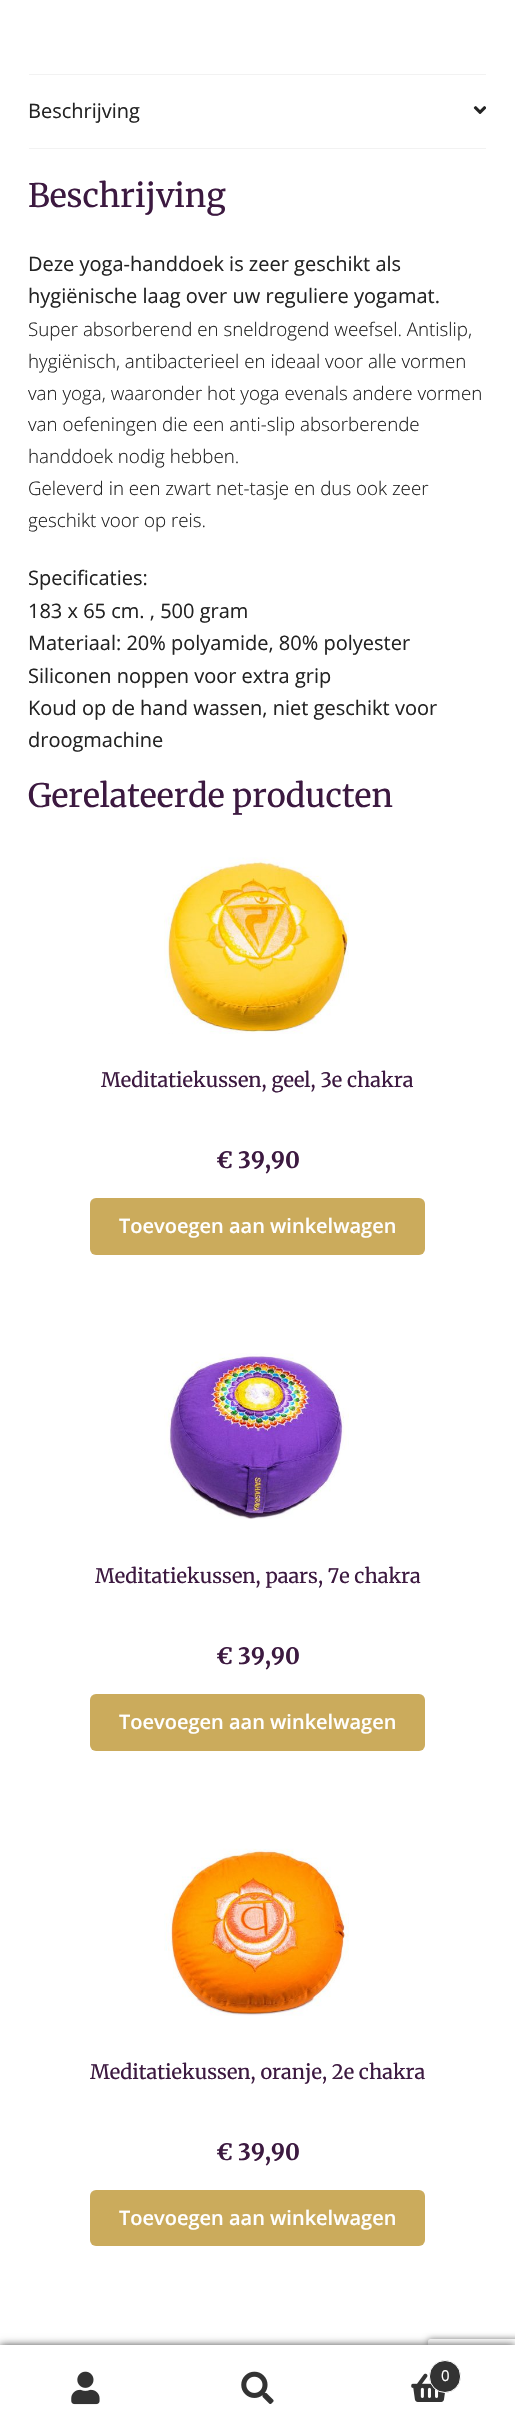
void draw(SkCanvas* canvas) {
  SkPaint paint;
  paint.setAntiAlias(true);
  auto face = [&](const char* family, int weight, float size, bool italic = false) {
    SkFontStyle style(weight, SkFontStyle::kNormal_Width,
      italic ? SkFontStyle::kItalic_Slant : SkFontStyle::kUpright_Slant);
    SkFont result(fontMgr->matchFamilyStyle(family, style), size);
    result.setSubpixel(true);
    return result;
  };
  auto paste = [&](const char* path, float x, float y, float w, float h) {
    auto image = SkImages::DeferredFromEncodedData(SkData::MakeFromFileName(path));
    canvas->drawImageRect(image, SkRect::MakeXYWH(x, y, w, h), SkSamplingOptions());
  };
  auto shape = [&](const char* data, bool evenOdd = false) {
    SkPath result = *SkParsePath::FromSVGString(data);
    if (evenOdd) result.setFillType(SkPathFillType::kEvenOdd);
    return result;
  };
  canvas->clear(0xffffffff);
  paint.setColor(0xfff2f2f2);
  canvas->drawRect(SkRect::MakeXYWH(29, 74, 457, 1), paint);
  canvas->drawRect(SkRect::MakeXYWH(29, 148, 457, 1), paint);
  paste("img/1.png", 473, 106, 13, 8);
  paste("img/2.png", 164, 857, 185, 177);
  paint.setColor(0xffcbab5c);
  canvas->drawRoundRect(SkRect::MakeXYWH(90, 1198, 335, 57), 6, 6, paint);
  paste("img/3.png", 164, 1353, 185, 166);
  canvas->drawRoundRect(SkRect::MakeXYWH(90, 1694, 335, 57), 6, 6, paint);
  paste("img/4.png", 164, 1848, 185, 168);
  canvas->drawRoundRect(SkRect::MakeXYWH(90, 2190, 335, 56), 6, 6, paint);
  paint.setColor(0xb3000000);
  paint.setMaskFilter(SkMaskFilter::MakeBlur(kNormal_SkBlurStyle, 4));
  canvas->drawRect(SkRect::MakeXYWH(0, 2345, 515, 86), paint);
  paint.setMaskFilter(nullptr);
  canvas->save();
  canvas->clipPath(shape("M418 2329H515V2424H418ZM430.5 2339H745.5C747 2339 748 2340 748 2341.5V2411.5C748 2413 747 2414 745.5 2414H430.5C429 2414 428 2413 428 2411.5V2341.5C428 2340 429 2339 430.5 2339Z", true), true);
  paint.setColor(0xff808080);
  paint.setMaskFilter(SkMaskFilter::MakeBlur(kNormal_SkBlurStyle, 3));
  canvas->drawRoundRect(SkRect::MakeXYWH(428, 2339, 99, 75), 2.5f, 2.5f, paint);
  paint.setMaskFilter(nullptr);
  canvas->restore();
  paint.setColor(0xffffffff);
  canvas->drawRect(SkRect::MakeXYWH(0, 2345, 515, 1), paint);
  canvas->drawRect(SkRect::MakeXYWH(0, 2346, 515, 85), paint);
  paste("img/5.png", 71, 2371, 29, 34);
  paste("img/6.png", 241, 2371, 33, 33);
  paste("img/7.png", 411, 2373, 34, 29);
  paint.setColor(0xff333333);
  canvas->drawRoundRect(SkRect::MakeXYWH(429.5f, 2360.5f, 31, 32), 15.5f, 15.5f, paint);
  paint.setStroke(true);
  paint.setStrokeWidth(1);
  paint.setColor(0xffffffff);
  canvas->drawRoundRect(SkRect::MakeXYWH(429.5f, 2360.5f, 31, 32), 15.5f, 15.5f, paint);
  auto f0 = face("Open Sans", 400, 20);
  paint.setStroke(false);
  paint.setColor(0xff232323);
  canvas->drawString("Beschrijving", 28, 118, f0, paint);
  auto f1 = face("Merriweather", 400, 32.4f);
  paint.setColor(0xff3c1940);
  canvas->drawString("Beschrijving", 28, 207, f1, paint);
  paint.setColor(0xff232323);
  canvas->drawString("Deze yoga-handdoek is zeer geschikt als", 28, 271, f0, paint);
  canvas->drawString("hygiënische laag over uw reguliere yogamat.", 28, 303, f0, paint);
  auto f2 = face("Open Sans", 300, 18.75f);
  {
    const struct { const char* s; float x, y; } items[] = {
      {"Super absorberend en sneldrogend weefsel. Antislip,", 28, 336},
      {"hygiënisch, antibacterieel en ideaal voor alle vormen", 28, 368},
      {"van yoga, waaronder hot yoga evenals andere vormen", 28, 400},
      {"van oefeningen die een anti-slip absorberende", 28, 431},
      {"handdoek nodig hebben.", 28, 463},
      {"Geleverd in een zwart net-tasje en dus ook zeer", 28, 495},
    };
    for (auto [s, x, y] : items) {
      canvas->drawString(s, x, y, f2, paint);
    }
  }
  canvas->save();
  canvas->clipRect(SkRect::MakeXYWH(29, 54, 457, 724));
  canvas->drawString("geschikt voor op reis.", 28, 527, f2, paint);
  canvas->restore();
  {
    const struct { const char* s; float x, y; } items[] = {
      {"Specificaties:", 28, 585},
      {"183 x 65 cm. , 500 gram", 28, 618},
      {"Materiaal: 20% polyamide, 80% polyester", 28, 650},
      {"Siliconen noppen voor extra grip", 28, 683},
      {"Koud op de hand wassen, niet geschikt voor", 28, 715},
      {"droogmachine", 28, 747},
    };
    for (auto [s, x, y] : items) {
      canvas->drawString(s, x, y, f0, paint);
    }
  }
  paint.setColor(0xff3c1940);
  canvas->drawString("Gerelateerde producten", 28, 807, f1, paint);
  auto f3 = face("Merriweather", 400, 20);
  canvas->drawString("Meditatiekussen, geel, 3e chakra", 101, 1087, f3, paint);
  auto f4 = face("Merriweather", 700, 22.5f);
  canvas->drawString("€ 39,90", 216, 1168, f4, paint);
  auto f5 = face("Open Sans", 600, 20);
  paint.setColor(0xffffffff);
  canvas->drawString("Toevoegen aan winkelwagen", 119, 1233, f5, paint);
  paint.setColor(0xff3c1940);
  canvas->drawString("Meditatiekussen, paars, 7e chakra", 95, 1583, f3, paint);
  canvas->drawString("€ 39,90", 216, 1664, f4, paint);
  paint.setColor(0xffffffff);
  canvas->drawString("Toevoegen aan winkelwagen", 119, 1729, f5, paint);
  paint.setColor(0xff3c1940);
  canvas->drawString("Meditatiekussen, oranje, 2e chakra", 90, 2079, f3, paint);
  canvas->drawString("€ 39,90", 216, 2160, f4, paint);
  paint.setColor(0xffffffff);
  canvas->drawString("Toevoegen aan winkelwagen", 119, 2225, f5, paint);
  auto f6 = face("Open Sans", 400, 15);
  canvas->drawString("0", 441, 2381, f6, paint);
}
